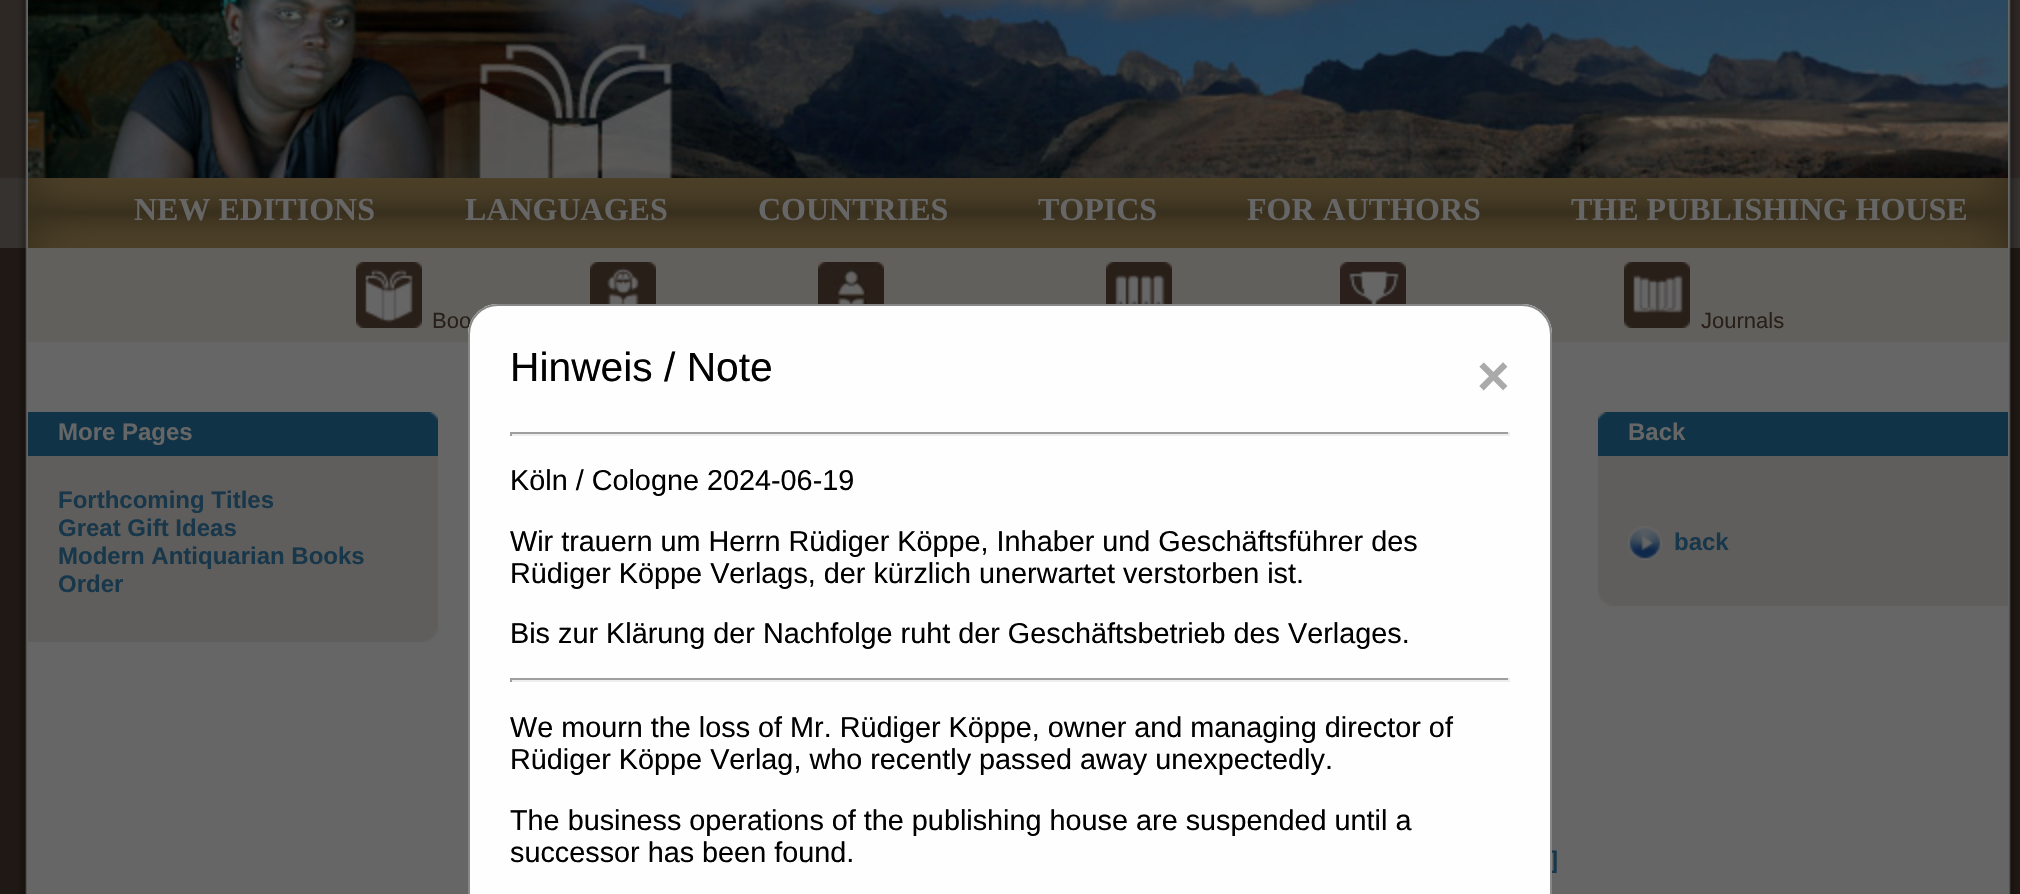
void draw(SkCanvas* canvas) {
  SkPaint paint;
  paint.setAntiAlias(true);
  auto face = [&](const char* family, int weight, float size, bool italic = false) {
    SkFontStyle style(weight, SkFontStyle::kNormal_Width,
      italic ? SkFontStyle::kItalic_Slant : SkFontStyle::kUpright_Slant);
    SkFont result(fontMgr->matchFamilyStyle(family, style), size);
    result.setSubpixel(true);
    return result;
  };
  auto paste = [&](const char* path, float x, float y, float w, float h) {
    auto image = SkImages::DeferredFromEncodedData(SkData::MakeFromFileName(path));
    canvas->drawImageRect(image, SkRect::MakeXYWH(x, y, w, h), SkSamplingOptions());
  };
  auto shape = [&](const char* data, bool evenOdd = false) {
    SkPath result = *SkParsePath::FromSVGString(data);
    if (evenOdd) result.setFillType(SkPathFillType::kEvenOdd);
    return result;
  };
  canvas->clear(0xff1f1814);
  paste("img/1.png", 0, 0, 2020, 248);
  paste("img/2.png", 18, 0, 2000, 894);
  paste("img/3.png", 28, 0, 1980, 178);
  paste("img/4.png", 28, 178, 1980, 70);
  paint.setColor(0xff62605c);
  canvas->drawRect(SkRect::MakeXYWH(28, 248, 1980, 94), paint);
  paste("img/5.png", 356, 262, 66, 66);
  paste("img/6.png", 590, 262, 66, 42);
  paste("img/7.png", 818, 262, 66, 42);
  paste("img/8.png", 1106, 262, 66, 42);
  paste("img/9.png", 1340, 262, 66, 42);
  paste("img/10.png", 1624, 262, 66, 66);
  paste("img/11.png", 28, 412, 410, 44);
  paint.setColor(0xff5f5e5c);
  canvas->drawRect(SkRect::MakeXYWH(28, 456, 410, 172), paint);
  paste("img/12.png", 28, 628, 410, 14);
  paste("img/13.png", 1598, 412, 410, 44);
  canvas->drawRect(SkRect::MakeXYWH(1598, 456, 410, 136), paint);
  paste("img/14.png", 1628, 526, 34, 34);
  paste("img/15.png", 1598, 592, 410, 14);
  auto f0 = face("Liberation Serif", 700, 32);
  paint.setColor(0xff666666);
  {
    const struct { const char* s; float x, y; } items[] = {
      {"NEW EDITIONS", 134, 220},
      {"LANGUAGES", 465, 220},
      {"COUNTRIES", 758, 220},
      {"TOPICS", 1038, 220},
      {"FOR AUTHORS", 1247, 220},
      {"THE PUBLISHING HOUSE", 1571, 220},
    };
    for (auto [s, x, y] : items) {
      canvas->drawString(s, x, y, f0, paint);
    }
  }
  auto f1 = face("Liberation Sans", 400, 22);
  paint.setColor(0xff291f19);
  canvas->drawString("Boo", 432, 328, f1, paint);
  canvas->drawString("Journals", 1701, 328, f1, paint);
  auto f2 = face("Liberation Sans", 700, 24);
  paint.setColor(0xff666666);
  canvas->drawString("More Pages", 58, 440, f2, paint);
  paint.setColor(0xff18374a);
  {
    const struct { const char* s; float x, y; } items[] = {
      {"Forthcoming Titles", 58, 508},
      {"Great Gift Ideas", 58, 536},
      {"Modern Antiquarian Books", 58, 564},
      {"Order", 58, 592},
    };
    for (auto [s, x, y] : items) {
      canvas->drawString(s, x, y, f2, paint);
    }
  }
  paint.setColor(0xff666666);
  canvas->drawString("Back", 1628, 440, f2, paint);
  paint.setColor(0xff18374a);
  canvas->drawString("back", 1674, 550, f2, paint);
  canvas->drawString("]", 1550, 868, f2, paint);
  paint.setColor(0xfffefefe);
  canvas->drawPath(shape("M498 304H1522C1538.5 304 1552 317.5 1552 334V894H468V334C468 317.5 481.5 304 498 304Z"), paint);
  paint.setStroke(true);
  paint.setStrokeWidth(2);
  paint.setColor(0xff888888);
  canvas->drawRoundRect(SkRect::MakeXYWH(469, 305, 1082, 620), 29, 29, paint);
  auto f3 = face("Liberation Sans", 400, 40.75f);
  paint.setStroke(false);
  paint.setColor(0xff000000);
  canvas->drawString("Hinweis / Note", 510, 381, f3, paint);
  auto f4 = face("Liberation Sans", 700, 56);
  paint.setColor(0xffaaaaaa);
  canvas->drawString("×", 1477, 395, f4, paint);
  {
    const struct { float x, y, w, h; SkColor color; } items[] = {
      {510, 432, 1000, 2, 0xff9f9f9f},
      {1508, 432, 2, 4, 0xffeeeeee},
      {510, 434, 1000, 2, 0xffeeeeee},
      {510, 432, 2, 4, 0xff9f9f9f},
    };
    for (auto [x, y, w, h, color] : items) {
      paint.setColor(color);
      canvas->drawRect(SkRect::MakeXYWH(x, y, w, h), paint);
    }
  }
  auto f5 = face("Liberation Sans", 400, 28.8f);
  paint.setColor(0xff000000);
  {
    const struct { const char* s; float x, y; } items[] = {
      {"Köln / Cologne 2024-06-19", 510, 490},
      {"Wir trauern um Herrn Rüdiger Köppe, Inhaber und Geschäftsführer des", 510, 551},
      {"Rüdiger Köppe Verlags, der kürzlich unerwartet verstorben ist.", 510, 583},
      {"Bis zur Klärung der Nachfolge ruht der Geschäftsbetrieb des Verlages.", 510, 643},
    };
    for (auto [s, x, y] : items) {
      canvas->drawString(s, x, y, f5, paint);
    }
  }
  {
    const struct { float x, y, w, h; SkColor color; } items[] = {
      {510, 678, 1000, 2, 0xff9f9f9f},
      {1508, 678, 2, 4, 0xffeeeeee},
      {510, 680, 1000, 2, 0xffeeeeee},
      {510, 678, 2, 4, 0xff9f9f9f},
    };
    for (auto [x, y, w, h, color] : items) {
      paint.setColor(color);
      canvas->drawRect(SkRect::MakeXYWH(x, y, w, h), paint);
    }
  }
  paint.setColor(0xff000000);
  {
    const struct { const char* s; float x, y; } items[] = {
      {"We mourn the loss of Mr. Rüdiger Köppe, owner and managing director of", 510, 737},
      {"Rüdiger Köppe Verlag, who recently passed away unexpectedly.", 510, 769},
      {"The business operations of the publishing house are suspended until a", 510, 830},
      {"successor has been found.", 510, 862},
    };
    for (auto [s, x, y] : items) {
      canvas->drawString(s, x, y, f5, paint);
    }
  }
}
